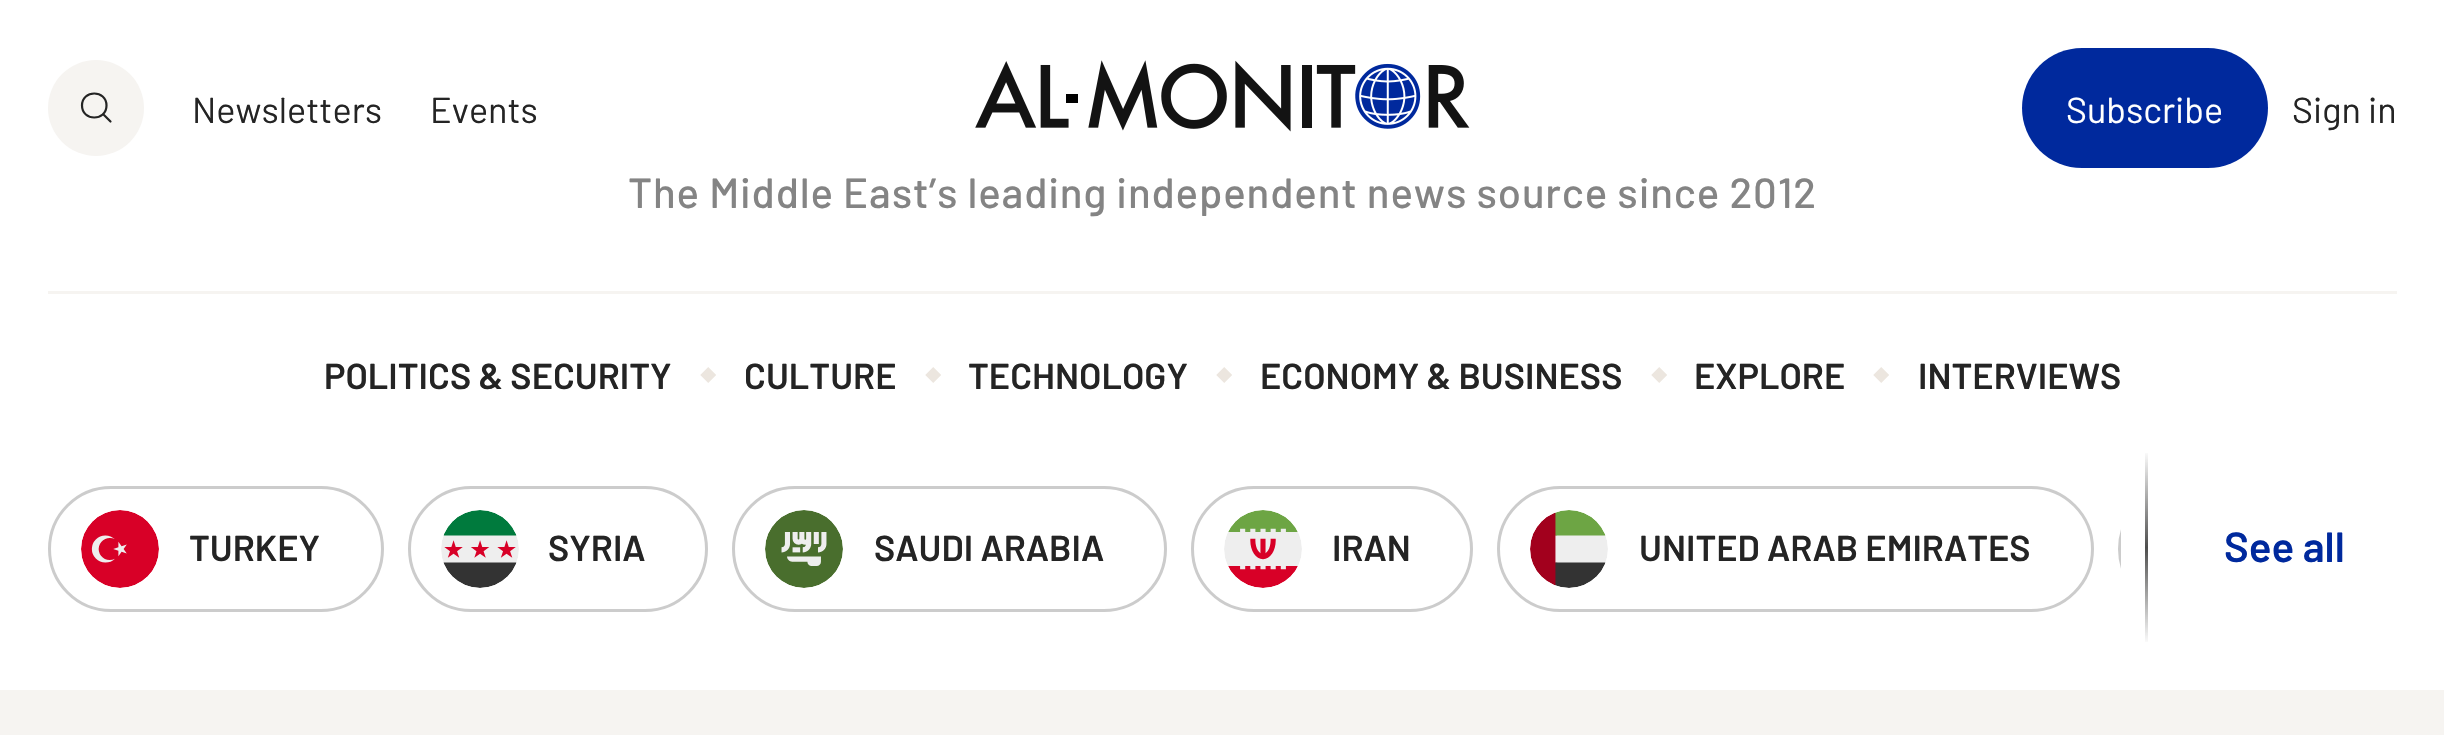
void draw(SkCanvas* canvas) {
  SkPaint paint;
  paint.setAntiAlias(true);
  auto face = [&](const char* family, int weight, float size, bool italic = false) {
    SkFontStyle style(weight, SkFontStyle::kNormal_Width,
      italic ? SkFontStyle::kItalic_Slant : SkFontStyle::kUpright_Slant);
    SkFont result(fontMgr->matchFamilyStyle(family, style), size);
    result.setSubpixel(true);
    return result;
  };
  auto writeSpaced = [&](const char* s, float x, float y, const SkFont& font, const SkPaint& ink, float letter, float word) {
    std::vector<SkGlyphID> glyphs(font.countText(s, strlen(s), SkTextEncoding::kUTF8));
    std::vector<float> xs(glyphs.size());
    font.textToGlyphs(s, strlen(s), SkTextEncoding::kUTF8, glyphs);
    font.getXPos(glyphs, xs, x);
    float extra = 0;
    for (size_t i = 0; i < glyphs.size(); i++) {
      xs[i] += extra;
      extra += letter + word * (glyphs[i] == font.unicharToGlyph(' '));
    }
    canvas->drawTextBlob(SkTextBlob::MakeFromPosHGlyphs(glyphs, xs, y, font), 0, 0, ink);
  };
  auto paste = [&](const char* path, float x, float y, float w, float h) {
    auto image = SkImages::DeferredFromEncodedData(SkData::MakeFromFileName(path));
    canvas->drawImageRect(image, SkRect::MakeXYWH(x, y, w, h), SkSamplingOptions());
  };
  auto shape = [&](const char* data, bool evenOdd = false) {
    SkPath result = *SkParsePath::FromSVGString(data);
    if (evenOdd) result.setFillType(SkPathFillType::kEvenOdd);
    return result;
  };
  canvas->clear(0xfff6f4f1);
  paint.setColor(0xffffffff);
  canvas->drawRect(SkRect::MakeXYWH(0, 0, 2444, 690), paint);
  paint.setColor(0xfff6f4f1);
  canvas->drawCircle(96, 108, 48, paint);
  paint.setStroke(true);
  paint.setStrokeWidth(2.2f);
  paint.setStrokeCap(SkPaint::kRound_Cap);
  paint.setStrokeJoin(SkPaint::kRound_Join);
  paint.setColor(0xff242424);
  canvas->drawPath(shape("M110.5 121.5L103 114M82 105.5C82 89.5 106.5 89.5 106.5 105.5C106.5 121.5 82 121.5 82 105.5Z"), paint);
  paste("img/1.png", 975, 60, 495, 72);
  paint.setStroke(false);
  paint.setColor(0xff00299d);
  canvas->drawRoundRect(SkRect::MakeXYWH(2022, 48, 246, 120), 60, 60, paint);
  paint.setColor(0xfff6f4f1);
  canvas->drawRect(SkRect::MakeXYWH(48, 291, 2349, 3), paint);
  paste("img/2.png", 700, 367, 16, 16);
  paste("img/2.png", 925, 367, 16, 16);
  paste("img/2.png", 1216, 367, 16, 16);
  paste("img/2.png", 1651, 367, 16, 16);
  paste("img/2.png", 1873, 367, 16, 16);
  paste("img/3.png", 2145, 453, 3, 189);
  paint.setStroke(true);
  paint.setStrokeWidth(3);
  paint.setStrokeCap(SkPaint::kButt_Cap);
  paint.setStrokeJoin(SkPaint::kMiter_Join);
  paint.setColor(0xffcccccc);
  canvas->drawRoundRect(SkRect::MakeXYWH(49.5f, 487.5f, 333, 123), 61.5f, 61.5f, paint);
  paste("img/4.png", 81, 510, 78, 78);
  canvas->drawRoundRect(SkRect::MakeXYWH(409.5f, 487.5f, 297, 123), 61.5f, 61.5f, paint);
  paste("img/5.png", 441, 510, 78, 78);
  canvas->drawRoundRect(SkRect::MakeXYWH(733.5f, 487.5f, 432, 123), 61.5f, 61.5f, paint);
  paste("img/6.png", 765, 510, 78, 78);
  canvas->drawRoundRect(SkRect::MakeXYWH(1192.5f, 487.5f, 279, 123), 61.5f, 61.5f, paint);
  paste("img/7.png", 1224, 510, 78, 78);
  canvas->drawRoundRect(SkRect::MakeXYWH(1498.5f, 487.5f, 594, 123), 61.5f, 61.5f, paint);
  paste("img/8.png", 1530, 510, 78, 78);
  canvas->save();
  canvas->clipRect(SkRect::MakeXYWH(48, 486, 2073, 126));
  canvas->drawRoundRect(SkRect::MakeXYWH(2119.5f, 487.5f, 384, 123), 61.5f, 61.5f, paint);
  canvas->restore();
  auto f0 = face("Barlow", 400, 36);
  paint.setStroke(false);
  paint.setColor(0xff242424);
  canvas->drawString("Newsletters", 192, 123, f0, paint);
  canvas->drawString("Events", 430, 123, f0, paint);
  paint.setColor(0xffffffff);
  canvas->drawString("Subscribe", 2066, 123, f0, paint);
  paint.setColor(0xff242424);
  canvas->drawString("Sign in", 2292, 123, f0, paint);
  auto f1 = face("Barlow", 500, 42);
  paint.setColor(0xff848484);
  writeSpaced("The Middle Eastʼs leading independent news source since 2012", 628, 208, f1, paint, 0.85f, 0);
  auto f2 = face("Barlow", 600, 36);
  paint.setColor(0xff242424);
  {
    const struct { const char* s; float x, y; } items[] = {
      {"POLITICS & SECURITY", 324, 389},
      {"CULTURE", 744, 389},
      {"TECHNOLOGY", 968, 389},
      {"ECONOMY & BUSINESS", 1260, 389},
      {"EXPLORE", 1694, 389},
      {"INTERVIEWS", 1918, 389},
      {"TURKEY", 189, 561},
      {"SYRIA", 548, 561},
      {"SAUDI ARABIA", 874, 561},
      {"IRAN", 1332, 561},
      {"UNITED ARAB EMIRATES", 1639, 561},
    };
    for (auto [s, x, y] : items) {
      canvas->drawString(s, x, y, f2, paint);
    }
  }
  auto f3 = face("Barlow", 600, 42);
  paint.setColor(0xff00299d);
  canvas->drawString("See all", 2224, 562, f3, paint);
}
